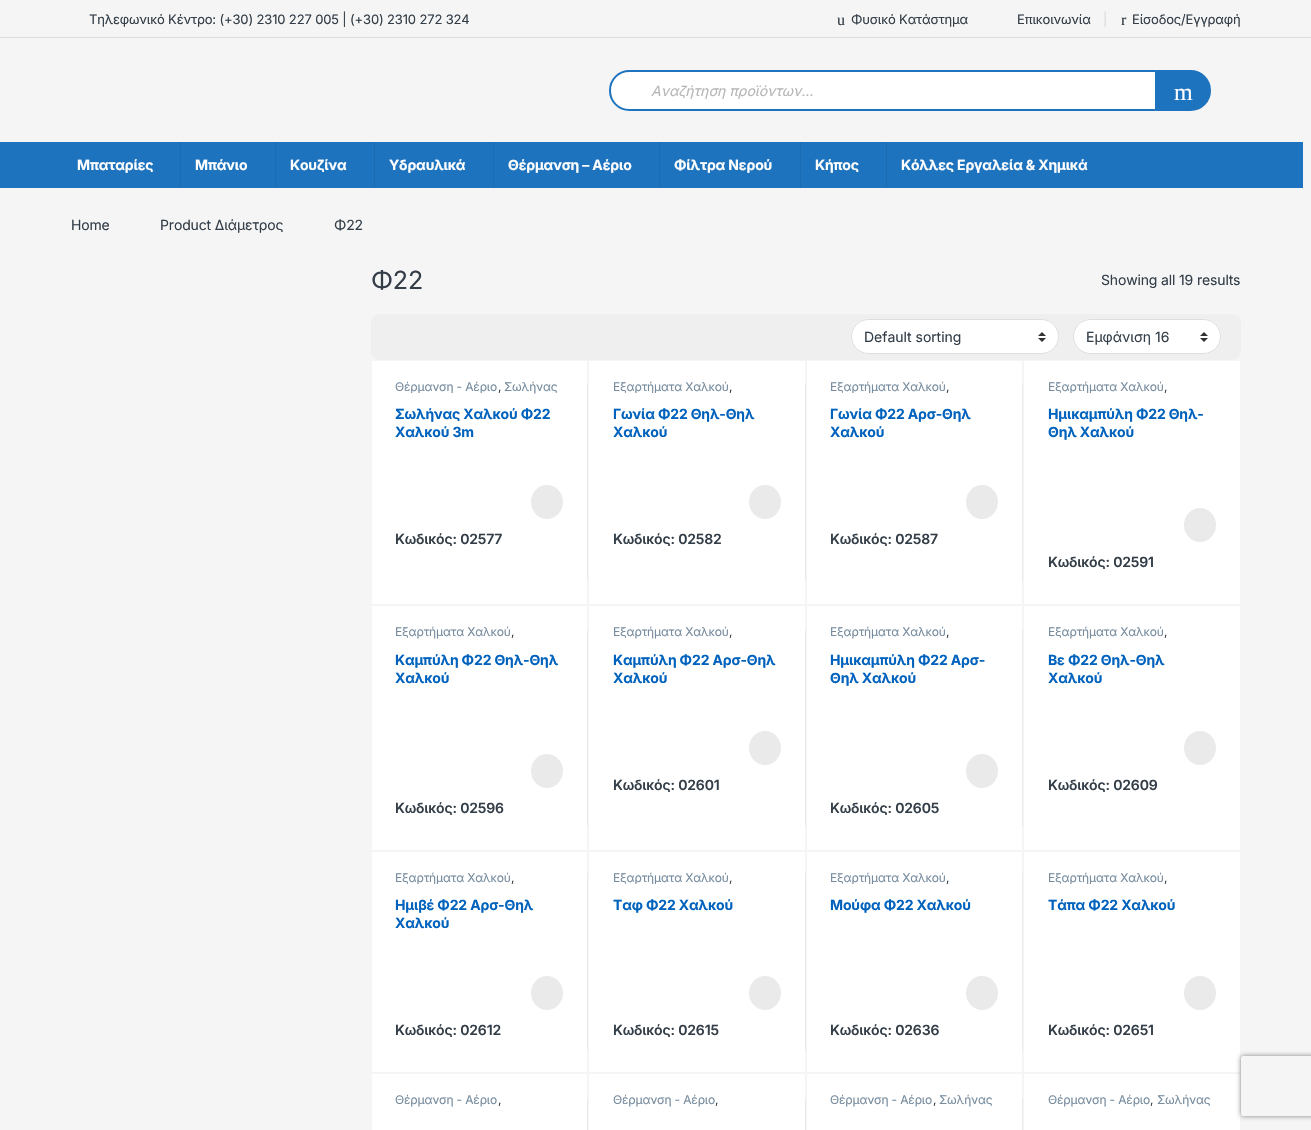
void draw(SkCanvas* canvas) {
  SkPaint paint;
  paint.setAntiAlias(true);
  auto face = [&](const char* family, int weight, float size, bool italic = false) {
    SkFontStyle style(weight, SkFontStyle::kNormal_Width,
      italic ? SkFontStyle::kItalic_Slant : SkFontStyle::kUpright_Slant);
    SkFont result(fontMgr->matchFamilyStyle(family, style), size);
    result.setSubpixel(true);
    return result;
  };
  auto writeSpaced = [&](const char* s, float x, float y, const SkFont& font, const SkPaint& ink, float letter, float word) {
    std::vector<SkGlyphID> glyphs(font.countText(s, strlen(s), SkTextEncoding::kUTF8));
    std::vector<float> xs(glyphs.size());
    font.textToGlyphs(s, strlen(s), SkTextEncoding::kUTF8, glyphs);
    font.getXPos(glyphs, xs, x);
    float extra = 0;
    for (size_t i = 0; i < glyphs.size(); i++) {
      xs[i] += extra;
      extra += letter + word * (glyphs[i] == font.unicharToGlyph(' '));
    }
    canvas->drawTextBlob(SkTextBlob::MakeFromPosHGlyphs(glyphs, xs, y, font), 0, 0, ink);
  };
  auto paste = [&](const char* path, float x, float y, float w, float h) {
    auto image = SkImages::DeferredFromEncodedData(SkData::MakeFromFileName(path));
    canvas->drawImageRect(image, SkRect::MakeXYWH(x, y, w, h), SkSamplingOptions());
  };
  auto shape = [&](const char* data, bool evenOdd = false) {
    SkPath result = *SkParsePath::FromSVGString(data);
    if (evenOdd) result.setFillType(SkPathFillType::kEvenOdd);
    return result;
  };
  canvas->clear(0xfff5f5f5);
  paint.setColor(0xffdddddd);
  canvas->drawRect(SkRect::MakeXYWH(0, 37, 1311, 1), paint);
  paint.setColor(0xffffffff);
  canvas->drawPath(shape("M629.5 71H1155C1155.5 71 1156 71.5 1156 72V109C1156 109.5 1155.5 110 1155 110H629.5C618.5 110 610 101.5 610 90.5C610 79.5 618.5 71 629.5 71Z"), paint);
  paint.setStroke(true);
  paint.setStrokeWidth(2);
  paint.setColor(0xff1e73be);
  canvas->drawPath(shape("M629.5 71H1155C1155.5 71 1156 71.5 1156 72V109C1156 109.5 1155.5 110 1155 110H629.5C618.5 110 610 101.5 610 90.5C610 79.5 618.5 71 629.5 71Z"), paint);
  paint.setStroke(false);
  canvas->drawPath(shape("M1157 71H1190.5C1201.5 71 1210 79.5 1210 90.5C1210 101.5 1201.5 110 1190.5 110H1157Z"), paint);
  paint.setStroke(true);
  canvas->drawPath(shape("M1157 71H1190.5C1201.5 71 1210 79.5 1210 90.5C1210 101.5 1201.5 110 1190.5 110H1157Z"), paint);
  paint.setStroke(false);
  {
    const struct { float x, y, w, h; SkColor color; } items[] = {
      {0, 142, 1303, 46, 0xff1e73be},
      {180, 142, 1, 46, 0xff1c6aaf},
      {275, 142, 1, 46, 0xff1c6aaf},
      {374, 142, 1, 46, 0xff1c6aaf},
      {493, 142, 1, 46, 0xff1c6aaf},
      {659, 142, 1, 46, 0xff1c6aaf},
      {800, 142, 1, 46, 0xff1c6aaf},
      {886, 142, 1, 46, 0xff1c6aaf},
    };
    for (auto [x, y, w, h, color] : items) {
      paint.setColor(color);
      canvas->drawRect(SkRect::MakeXYWH(x, y, w, h), paint);
    }
  }
  paint.setColor(0xffefefef);
  canvas->drawRoundRect(SkRect::MakeXYWH(371, 314, 870, 46), 9, 9, paint);
  paint.setColor(0xffffffff);
  canvas->drawRoundRect(SkRect::MakeXYWH(851, 319, 208, 35), 17.5f, 17.5f, paint);
  paste("img/1.png", 1038, 332, 8, 10);
  paint.setStroke(true);
  paint.setStrokeWidth(1);
  paint.setColor(0xffdddddd);
  canvas->drawRoundRect(SkRect::MakeXYWH(851.5f, 319.5f, 207, 34), 17, 17, paint);
  paint.setStroke(false);
  paint.setColor(0xffffffff);
  canvas->drawRoundRect(SkRect::MakeXYWH(1073, 319, 148, 35), 17.5f, 17.5f, paint);
  paste("img/1.png", 1200, 332, 8, 10);
  paint.setStroke(true);
  paint.setColor(0xffdddddd);
  canvas->drawRoundRect(SkRect::MakeXYWH(1073.5f, 319.5f, 147, 34), 17, 17, paint);
  paint.setStroke(false);
  paint.setColor(0xffffffff);
  canvas->drawRect(SkRect::MakeXYWH(372, 361, 215, 243), paint);
  paint.setColor(0xffeaeaea);
  canvas->drawOval(SkRect::MakeXYWH(531, 485, 32, 34), paint);
  canvas->drawRect(SkRect::MakeXYWH(587, 384, 1, 197), paint);
  paint.setColor(0xffffffff);
  canvas->drawRect(SkRect::MakeXYWH(589, 361, 216, 243), paint);
  paint.setColor(0xffeaeaea);
  canvas->drawOval(SkRect::MakeXYWH(749, 485, 32, 34), paint);
  canvas->drawRect(SkRect::MakeXYWH(805, 384, 1, 197), paint);
  paint.setColor(0xffffffff);
  canvas->drawRect(SkRect::MakeXYWH(807, 361, 215, 243), paint);
  paint.setColor(0xffeaeaea);
  canvas->drawOval(SkRect::MakeXYWH(966, 485, 32, 34), paint);
  canvas->drawRect(SkRect::MakeXYWH(1022, 384, 1, 197), paint);
  paint.setColor(0xffffffff);
  canvas->drawRect(SkRect::MakeXYWH(1024, 361, 216, 243), paint);
  paint.setColor(0xffeaeaea);
  canvas->drawOval(SkRect::MakeXYWH(1184, 508, 32, 34), paint);
  paint.setColor(0xffffffff);
  canvas->drawRect(SkRect::MakeXYWH(372, 606, 215, 244), paint);
  paint.setColor(0xffeaeaea);
  canvas->drawOval(SkRect::MakeXYWH(531, 754, 32, 34), paint);
  canvas->drawRect(SkRect::MakeXYWH(587, 630, 1, 196), paint);
  paint.setColor(0xffffffff);
  canvas->drawRect(SkRect::MakeXYWH(589, 606, 216, 244), paint);
  paint.setColor(0xffeaeaea);
  canvas->drawOval(SkRect::MakeXYWH(749, 731, 32, 34), paint);
  canvas->drawRect(SkRect::MakeXYWH(805, 630, 1, 196), paint);
  paint.setColor(0xffffffff);
  canvas->drawRect(SkRect::MakeXYWH(807, 606, 215, 244), paint);
  paint.setColor(0xffeaeaea);
  canvas->drawOval(SkRect::MakeXYWH(966, 754, 32, 34), paint);
  canvas->drawRect(SkRect::MakeXYWH(1022, 630, 1, 196), paint);
  paint.setColor(0xffffffff);
  canvas->drawRect(SkRect::MakeXYWH(1024, 606, 216, 244), paint);
  paint.setColor(0xffeaeaea);
  canvas->drawOval(SkRect::MakeXYWH(1184, 731, 32, 34), paint);
  paint.setColor(0xffffffff);
  canvas->drawRect(SkRect::MakeXYWH(372, 852, 215, 220), paint);
  paint.setColor(0xffeaeaea);
  canvas->drawOval(SkRect::MakeXYWH(531, 976, 32, 34), paint);
  canvas->drawRect(SkRect::MakeXYWH(587, 873, 1, 178), paint);
  paint.setColor(0xffffffff);
  canvas->drawRect(SkRect::MakeXYWH(589, 852, 216, 220), paint);
  paint.setColor(0xffeaeaea);
  canvas->drawOval(SkRect::MakeXYWH(749, 976, 32, 34), paint);
  canvas->drawRect(SkRect::MakeXYWH(805, 873, 1, 178), paint);
  paint.setColor(0xffffffff);
  canvas->drawRect(SkRect::MakeXYWH(807, 852, 215, 220), paint);
  paint.setColor(0xffeaeaea);
  canvas->drawOval(SkRect::MakeXYWH(966, 976, 32, 34), paint);
  canvas->drawRect(SkRect::MakeXYWH(1022, 873, 1, 178), paint);
  paint.setColor(0xffffffff);
  canvas->drawRect(SkRect::MakeXYWH(1024, 852, 216, 220), paint);
  paint.setColor(0xffeaeaea);
  canvas->drawOval(SkRect::MakeXYWH(1184, 976, 32, 34), paint);
  {
    const struct { float x, y, w, h; SkColor color; } items[] = {
      {372, 1074, 215, 56, 0xffffffff},
      {587, 1098, 1, 32, 0xffeaeaea},
      {589, 1074, 216, 56, 0xffffffff},
      {805, 1098, 1, 32, 0xffeaeaea},
      {807, 1074, 215, 56, 0xffffffff},
      {1022, 1098, 1, 32, 0xffeaeaea},
      {1024, 1074, 216, 56, 0xffffffff},
    };
    for (auto [x, y, w, h, color] : items) {
      paint.setColor(color);
      canvas->drawRect(SkRect::MakeXYWH(x, y, w, h), paint);
    }
  }
  canvas->save();
  canvas->clipPath(shape("M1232 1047H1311V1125H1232ZM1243 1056H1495C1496 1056 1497 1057 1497 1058V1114C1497 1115 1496 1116 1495 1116H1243C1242 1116 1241 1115 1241 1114V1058C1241 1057 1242 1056 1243 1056Z", true), true);
  paint.setColor(0xff808080);
  paint.setMaskFilter(SkMaskFilter::MakeBlur(kNormal_SkBlurStyle, 2.5f));
  canvas->drawRoundRect(SkRect::MakeXYWH(1241, 1056, 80, 60), 2, 2, paint);
  paint.setMaskFilter(nullptr);
  canvas->restore();
  auto f0 = face("Inter", 400, 13);
  paint.setColor(0xff333e48);
  writeSpaced("Τηλεφωνικό Κέντρο: (+30) 2310 227 005 | (+30) 2310 272 324", 89, 24, f0, paint, -0.15f, 0);
  auto f1 = face("Liberation Serif", 400, 16);
  writeSpaced("u", 837, 25, f1, paint, -0.15f, 0);
  writeSpaced("Φυσικό Κατάστημα", 851, 24, f0, paint, -0.15f, 0);
  writeSpaced("Επικοινωνία", 1017, 24, f0, paint, -0.15f, 0);
  paint.setColor(0xffdddddd);
  writeSpaced("|", 1103, 24, f0, paint, -0.15f, 0);
  paint.setColor(0xff333e48);
  writeSpaced("r", 1121, 25, f1, paint, -0.15f, 0);
  writeSpaced("Είσοδος/Εγγραφή", 1132, 24, f0, paint, -0.15f, 0);
  auto f2 = face("Inter", 400, 14, true);
  paint.setColor(0xffb6b6b6);
  canvas->drawString("Αναζήτηση προϊόντων...", 651, 96, f2, paint);
  auto f3 = face("Liberation Serif", 400, 24);
  paint.setColor(0xffffffff);
  canvas->drawString("m", 1174, 100, f3, paint);
  auto f4 = face("Inter", 700, 14);
  {
    const struct { const char* s; float x, y; } items[] = {
      {"Μπαταρίες", 77, 170},
      {"Μπάνιο", 195, 170},
      {"Κουζίνα", 290, 170},
      {"Υδραυλικά", 389, 170},
      {"Θέρμανση – Αέριο", 508, 170},
      {"Φίλτρα Νερού", 674, 170},
      {"Κήπος", 815, 170},
      {"Κόλλες Εργαλεία & Χημικά", 901, 170},
    };
    for (auto [s, x, y] : items) {
      writeSpaced(s, x, y, f4, paint, -0.15f, 0);
    }
  }
  auto f5 = face("Inter", 400, 14);
  paint.setColor(0xff333e48);
  {
    const struct { const char* s; float x, y; } items[] = {
      {"Home", 71, 230},
      {"Product Διάμετρος", 160, 230},
      {"Φ22", 334, 230},
    };
    for (auto [s, x, y] : items) {
      writeSpaced(s, x, y, f5, paint, -0.15f, 0);
    }
  }
  auto f6 = face("Inter", 400, 25);
  writeSpaced("Φ22", 371, 289, f6, paint, -0.15f, 0);
  writeSpaced("Showing all 19 results", 1101, 285, f5, paint, -0.15f, 0);
  canvas->drawString("Default sorting", 864, 342, f5, paint);
  canvas->drawString("Εμφάνιση 16", 1086, 342, f5, paint);
  canvas->save();
  canvas->clipRect(SkRect::MakeXYWH(395, 381, 168, 12));
  auto f7 = face("Inter", 400, 12);
  paint.setColor(0xff768b9e);
  writeSpaced("Θέρμανση - Αέριο", 395, 391, f7, paint, -0.15f, 0);
  canvas->restore();
  paint.setColor(0xff333e48);
  writeSpaced(",", 498, 391, f7, paint, -0.15f, 0);
  paint.setColor(0xff768b9e);
  writeSpaced("Σωλήνας", 504, 391, f7, paint, -0.15f, 0);
  paint.setColor(0xff0062bd);
  writeSpaced("Σωλήνας Χαλκού Φ22", 395, 419, f4, paint, -0.15f, 0);
  writeSpaced("Χαλκού 3m", 395, 437, f4, paint, -0.15f, 0);
  auto f8 = face("Inter", 600, 14);
  paint.setColor(0xff333e48);
  writeSpaced("Κωδικός: 02577", 395, 544, f8, paint, -0.15f, 0);
  canvas->save();
  canvas->clipRect(SkRect::MakeXYWH(613, 381, 168, 12));
  paint.setColor(0xff768b9e);
  writeSpaced("Εξαρτήματα Χαλκού", 613, 391, f7, paint, -0.15f, 0);
  canvas->restore();
  paint.setColor(0xff333e48);
  writeSpaced(",", 729, 391, f7, paint, -0.15f, 0);
  paint.setColor(0xff0062bd);
  writeSpaced("Γωνία Φ22 Θηλ-Θηλ", 613, 419, f4, paint, -0.15f, 0);
  writeSpaced("Χαλκού", 613, 437, f4, paint, -0.15f, 0);
  paint.setColor(0xff333e48);
  writeSpaced("Κωδικός: 02582", 613, 544, f8, paint, -0.15f, 0);
  canvas->save();
  canvas->clipRect(SkRect::MakeXYWH(830, 381, 168, 12));
  paint.setColor(0xff768b9e);
  writeSpaced("Εξαρτήματα Χαλκού", 830, 391, f7, paint, -0.15f, 0);
  canvas->restore();
  paint.setColor(0xff333e48);
  writeSpaced(",", 946, 391, f7, paint, -0.15f, 0);
  paint.setColor(0xff0062bd);
  writeSpaced("Γωνία Φ22 Αρσ-Θηλ", 830, 419, f4, paint, -0.15f, 0);
  writeSpaced("Χαλκού", 830, 437, f4, paint, -0.15f, 0);
  paint.setColor(0xff333e48);
  writeSpaced("Κωδικός: 02587", 830, 544, f8, paint, -0.15f, 0);
  canvas->save();
  canvas->clipRect(SkRect::MakeXYWH(1048, 381, 168, 12));
  paint.setColor(0xff768b9e);
  writeSpaced("Εξαρτήματα Χαλκού", 1048, 391, f7, paint, -0.15f, 0);
  canvas->restore();
  paint.setColor(0xff333e48);
  writeSpaced(",", 1164, 391, f7, paint, -0.15f, 0);
  paint.setColor(0xff0062bd);
  writeSpaced("Ημικαμπύλη Φ22 Θηλ-", 1048, 419, f4, paint, -0.15f, 0);
  writeSpaced("Θηλ Χαλκού", 1048, 437, f4, paint, -0.15f, 0);
  paint.setColor(0xff333e48);
  writeSpaced("Κωδικός: 02591", 1048, 567, f8, paint, -0.15f, 0);
  paint.setColor(0xff768b9e);
  writeSpaced("Εξαρτήματα Χαλκού", 395, 636, f7, paint, -0.15f, 0);
  paint.setColor(0xff333e48);
  writeSpaced(",", 511, 636, f7, paint, -0.15f, 0);
  paint.setColor(0xff0062bd);
  writeSpaced("Καμπύλη Φ22 Θηλ-Θηλ", 395, 665, f4, paint, -0.15f, 0);
  writeSpaced("Χαλκού", 395, 683, f4, paint, -0.15f, 0);
  paint.setColor(0xff333e48);
  writeSpaced("Κωδικός: 02596", 395, 813, f8, paint, -0.15f, 0);
  paint.setColor(0xff768b9e);
  writeSpaced("Εξαρτήματα Χαλκού", 613, 636, f7, paint, -0.15f, 0);
  paint.setColor(0xff333e48);
  writeSpaced(",", 729, 636, f7, paint, -0.15f, 0);
  paint.setColor(0xff0062bd);
  writeSpaced("Καμπύλη Φ22 Αρσ-Θηλ", 613, 665, f4, paint, -0.15f, 0);
  writeSpaced("Χαλκού", 613, 683, f4, paint, -0.15f, 0);
  paint.setColor(0xff333e48);
  writeSpaced("Κωδικός: 02601", 613, 790, f8, paint, -0.15f, 0);
  paint.setColor(0xff768b9e);
  writeSpaced("Εξαρτήματα Χαλκού", 830, 636, f7, paint, -0.15f, 0);
  paint.setColor(0xff333e48);
  writeSpaced(",", 946, 636, f7, paint, -0.15f, 0);
  paint.setColor(0xff0062bd);
  writeSpaced("Ημικαμπύλη Φ22 Αρσ-", 830, 665, f4, paint, -0.15f, 0);
  writeSpaced("Θηλ Χαλκού", 830, 683, f4, paint, -0.15f, 0);
  paint.setColor(0xff333e48);
  writeSpaced("Κωδικός: 02605", 830, 813, f8, paint, -0.15f, 0);
  paint.setColor(0xff768b9e);
  writeSpaced("Εξαρτήματα Χαλκού", 1048, 636, f7, paint, -0.15f, 0);
  paint.setColor(0xff333e48);
  writeSpaced(",", 1164, 636, f7, paint, -0.15f, 0);
  paint.setColor(0xff0062bd);
  writeSpaced("Βε Φ22 Θηλ-Θηλ", 1048, 665, f4, paint, -0.15f, 0);
  writeSpaced("Χαλκού", 1048, 683, f4, paint, -0.15f, 0);
  paint.setColor(0xff333e48);
  writeSpaced("Κωδικός: 02609", 1048, 790, f8, paint, -0.15f, 0);
  canvas->save();
  canvas->clipRect(SkRect::MakeXYWH(395, 872, 168, 12));
  paint.setColor(0xff768b9e);
  writeSpaced("Εξαρτήματα Χαλκού", 395, 882, f7, paint, -0.15f, 0);
  canvas->restore();
  paint.setColor(0xff333e48);
  writeSpaced(",", 511, 882, f7, paint, -0.15f, 0);
  paint.setColor(0xff0062bd);
  writeSpaced("Ημιβέ Φ22 Αρσ-Θηλ", 395, 910, f4, paint, -0.15f, 0);
  writeSpaced("Χαλκού", 395, 928, f4, paint, -0.15f, 0);
  paint.setColor(0xff333e48);
  writeSpaced("Κωδικός: 02612", 395, 1035, f8, paint, -0.15f, 0);
  canvas->save();
  canvas->clipRect(SkRect::MakeXYWH(613, 872, 168, 12));
  paint.setColor(0xff768b9e);
  writeSpaced("Εξαρτήματα Χαλκού", 613, 882, f7, paint, -0.15f, 0);
  canvas->restore();
  paint.setColor(0xff333e48);
  writeSpaced(",", 729, 882, f7, paint, -0.15f, 0);
  paint.setColor(0xff0062bd);
  writeSpaced("Ταφ Φ22 Χαλκού", 613, 910, f4, paint, -0.15f, 0);
  paint.setColor(0xff333e48);
  writeSpaced("Κωδικός: 02615", 613, 1035, f8, paint, -0.15f, 0);
  canvas->save();
  canvas->clipRect(SkRect::MakeXYWH(830, 872, 168, 12));
  paint.setColor(0xff768b9e);
  writeSpaced("Εξαρτήματα Χαλκού", 830, 882, f7, paint, -0.15f, 0);
  canvas->restore();
  paint.setColor(0xff333e48);
  writeSpaced(",", 946, 882, f7, paint, -0.15f, 0);
  paint.setColor(0xff0062bd);
  writeSpaced("Μούφα Φ22 Χαλκού", 830, 910, f4, paint, -0.15f, 0);
  paint.setColor(0xff333e48);
  writeSpaced("Κωδικός: 02636", 830, 1035, f8, paint, -0.15f, 0);
  canvas->save();
  canvas->clipRect(SkRect::MakeXYWH(1048, 872, 168, 12));
  paint.setColor(0xff768b9e);
  writeSpaced("Εξαρτήματα Χαλκού", 1048, 882, f7, paint, -0.15f, 0);
  canvas->restore();
  paint.setColor(0xff333e48);
  writeSpaced(",", 1164, 882, f7, paint, -0.15f, 0);
  paint.setColor(0xff0062bd);
  writeSpaced("Τάπα Φ22 Χαλκού", 1048, 910, f4, paint, -0.15f, 0);
  paint.setColor(0xff333e48);
  writeSpaced("Κωδικός: 02651", 1048, 1035, f8, paint, -0.15f, 0);
  paint.setColor(0xff768b9e);
  writeSpaced("Θέρμανση - Αέριο", 395, 1104, f7, paint, -0.15f, 0);
  paint.setColor(0xff333e48);
  writeSpaced(",", 498, 1104, f7, paint, -0.15f, 0);
  paint.setColor(0xff768b9e);
  writeSpaced("Θέρμανση - Αέριο", 613, 1104, f7, paint, -0.15f, 0);
  paint.setColor(0xff333e48);
  writeSpaced(",", 715, 1104, f7, paint, -0.15f, 0);
  paint.setColor(0xff768b9e);
  writeSpaced("Θέρμανση - Αέριο", 830, 1104, f7, paint, -0.15f, 0);
  paint.setColor(0xff333e48);
  writeSpaced(",", 933, 1104, f7, paint, -0.15f, 0);
  paint.setColor(0xff768b9e);
  writeSpaced("Σωλήνας", 939, 1104, f7, paint, -0.15f, 0);
  writeSpaced("Θέρμανση - Αέριο", 1048, 1104, f7, paint, -0.15f, 0);
  paint.setColor(0xff333e48);
  writeSpaced(",", 1150, 1104, f7, paint, -0.15f, 0);
  paint.setColor(0xff768b9e);
  writeSpaced("Σωλήνας", 1157, 1104, f7, paint, -0.15f, 0);
}
